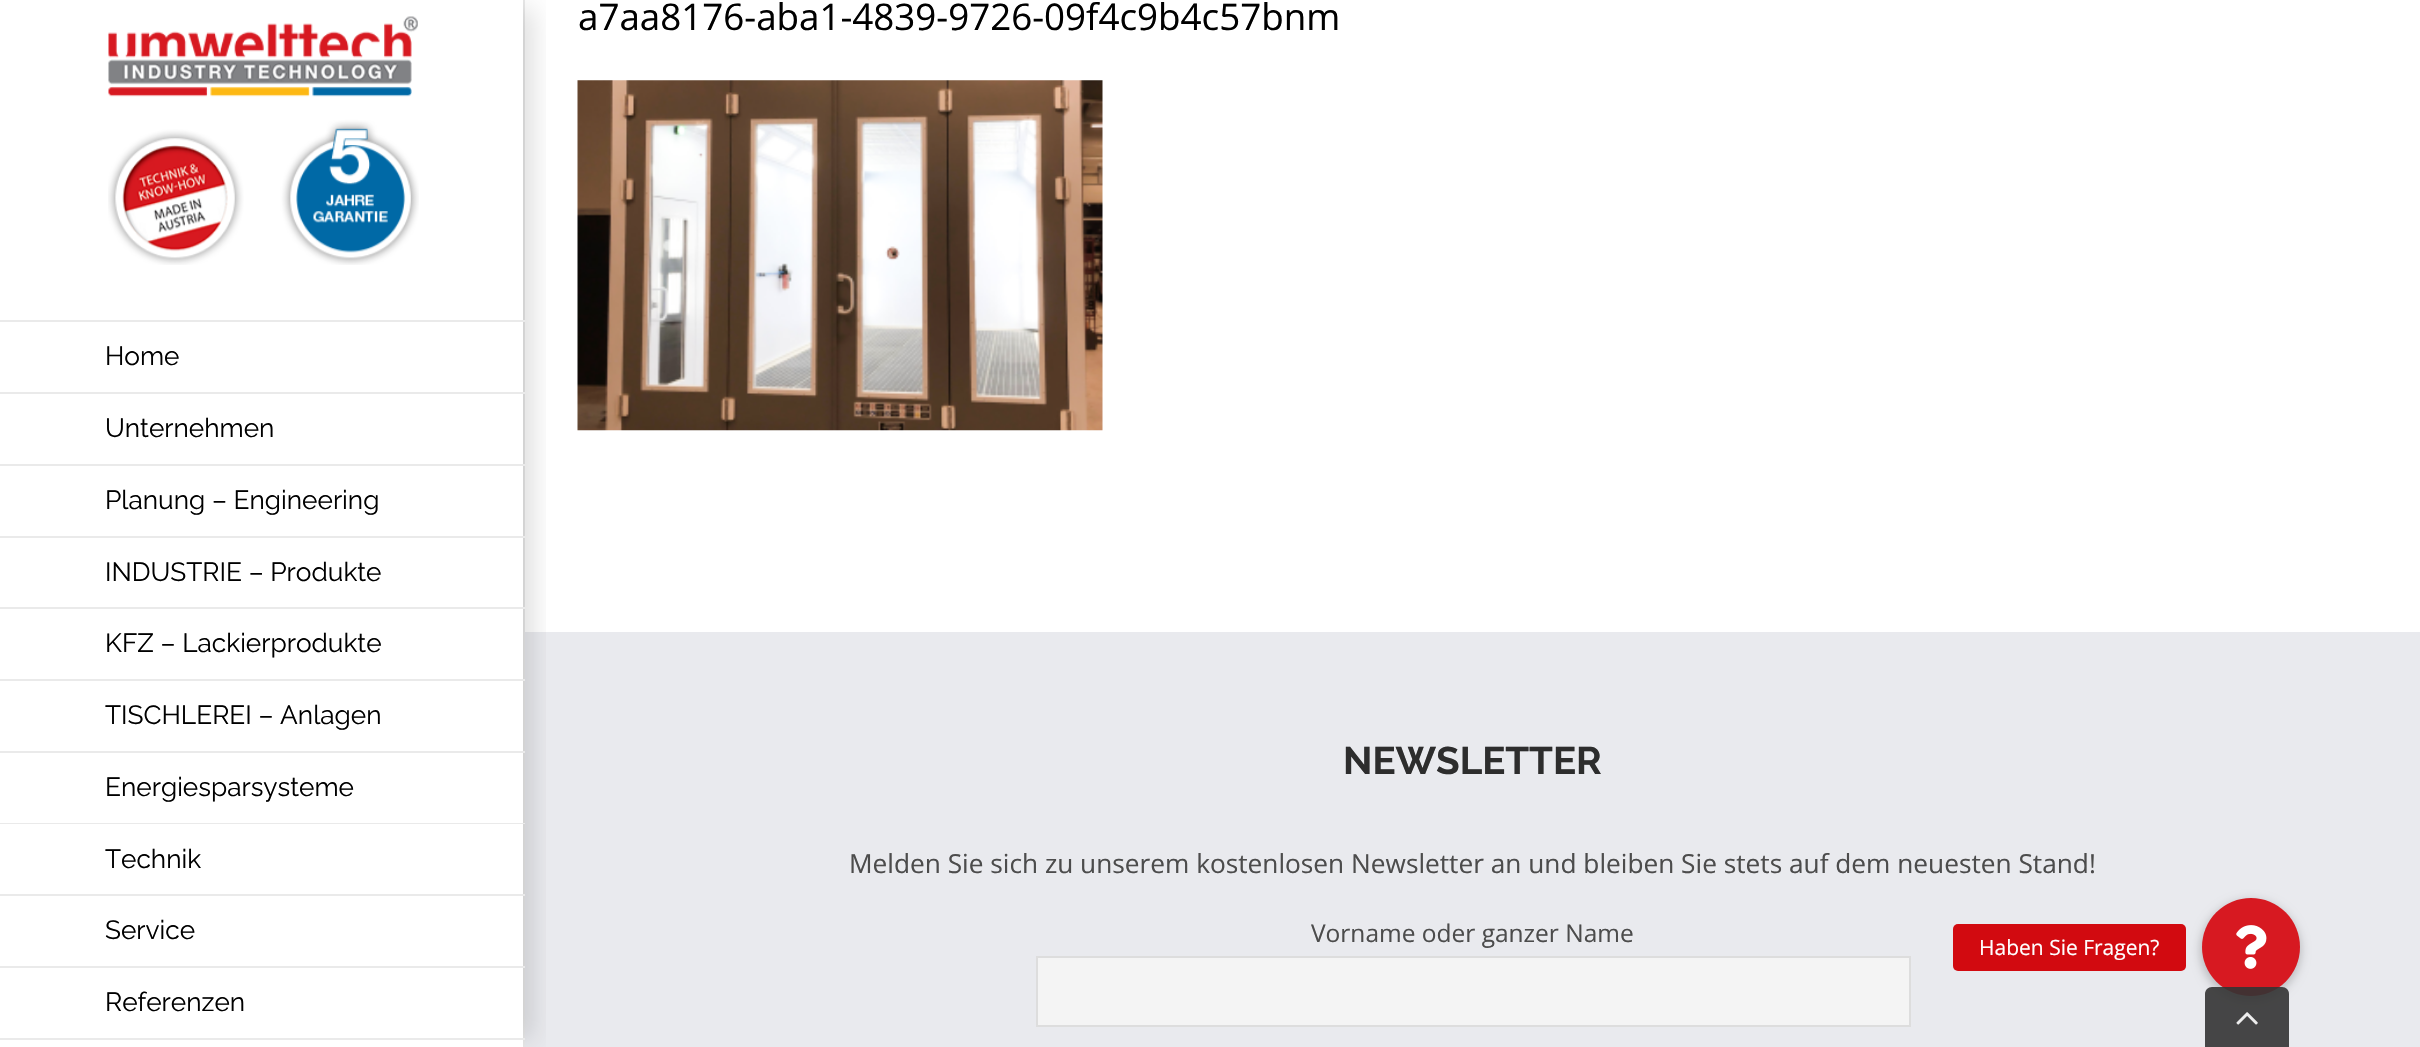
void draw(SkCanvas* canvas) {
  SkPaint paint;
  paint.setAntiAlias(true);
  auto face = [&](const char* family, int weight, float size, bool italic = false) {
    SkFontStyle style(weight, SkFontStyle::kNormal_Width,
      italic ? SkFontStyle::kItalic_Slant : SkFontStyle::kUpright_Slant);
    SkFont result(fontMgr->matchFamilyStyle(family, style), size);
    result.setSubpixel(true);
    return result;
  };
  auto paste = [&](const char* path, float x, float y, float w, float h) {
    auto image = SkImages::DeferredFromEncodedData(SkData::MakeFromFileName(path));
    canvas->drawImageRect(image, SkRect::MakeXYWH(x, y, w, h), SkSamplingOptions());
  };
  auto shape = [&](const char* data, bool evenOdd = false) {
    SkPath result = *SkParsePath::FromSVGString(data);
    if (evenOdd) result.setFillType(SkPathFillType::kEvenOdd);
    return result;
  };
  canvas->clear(0xffffffff);
  paste("img/1.png", 577, 80, 526, 351);
  paste("img/2.png", 108, 16, 311, 249);
  paint.setColor(0xffeaeaea);
  canvas->drawRect(SkRect::MakeXYWH(523, 0, 2, 1047), paint);
  paint.setColor(0xffe9eaee);
  canvas->drawRect(SkRect::MakeXYWH(525, 632, 1895, 415), paint);
  canvas->save();
  canvas->clipRect(SkRect::MakeXYWH(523, 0, 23, 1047));
  paint.setColor(0x24000000);
  paint.setMaskFilter(SkMaskFilter::MakeBlur(kNormal_SkBlurStyle, 13));
  canvas->drawRect(SkRect::MakeXYWH(506, 9, 26, 1031), paint);
  paint.setMaskFilter(nullptr);
  canvas->restore();
  {
    const struct { float x, y, w, h; SkColor color; } items[] = {
      {0, 320, 525, 2, 0xffeaeaea},
      {0, 392, 525, 2, 0xffeaeaea},
      {0, 464, 525, 2, 0xffeaeaea},
      {0, 536, 525, 2, 0xffeaeaea},
      {0, 607, 525, 2, 0xffeaeaea},
      {0, 679, 525, 2, 0xffeaeaea},
      {0, 751, 525, 2, 0xffeaeaea},
      {0, 823, 525, 1, 0xffeaeaea},
      {0, 894, 525, 2, 0xffeaeaea},
      {0, 966, 525, 2, 0xffeaeaea},
      {0, 1038, 525, 2, 0xffeaeaea},
    };
    for (auto [x, y, w, h, color] : items) {
      paint.setColor(color);
      canvas->drawRect(SkRect::MakeXYWH(x, y, w, h), paint);
    }
  }
  paint.setColor(0xfff4f4f4);
  canvas->drawRect(SkRect::MakeXYWH(1037, 957, 873, 69), paint);
  paint.setStroke(true);
  paint.setStrokeWidth(2);
  paint.setColor(0xffdddddd);
  canvas->drawRect(SkRect::MakeXYWH(1037, 957, 873, 69), paint);
  paint.setStroke(false);
  paint.setColor(0x33000000);
  paint.setMaskFilter(SkMaskFilter::MakeBlur(kNormal_SkBlurStyle, 5));
  canvas->drawRoundRect(SkRect::MakeXYWH(2200, 900, 101, 101), 50.5f, 50.5f, paint);
  paint.setMaskFilter(nullptr);
  paint.setColor(0xffd71921);
  canvas->drawCircle(2251, 947, 49, paint);
  paint.setColor(0xffd20a10);
  canvas->drawRoundRect(SkRect::MakeXYWH(1953, 924, 233, 47), 5, 5, paint);
  paste("img/3.png", 2236, 925, 31, 44);
  paint.setColor(0xe6333333);
  canvas->drawPath(shape("M2212 987H2282C2286 987 2289 990 2289 994V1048H2205V994C2205 990 2208 987 2212 987Z"), paint);
  paste("img/4.png", 2236, 1012, 22, 13);
  auto f0 = face("Open Sans", 400, 36.75f);
  paint.setColor(0xff000000);
  canvas->drawString("a7aa8176-aba1-4839-9726-09f4c9b4c57bnm", 578, 30, f0, paint);
  auto f1 = face("Raleway", 400, 26.25f);
  {
    const struct { const char* s; float x, y; } items[] = {
      {"Home", 105, 365},
      {"Unternehmen", 105, 437},
      {"Planung – Engineering", 105, 509},
      {"INDUSTRIE – Produkte", 105, 581},
      {"KFZ – Lackierprodukte", 105, 652},
      {"TISCHLEREI – Anlagen", 105, 724},
      {"Energiesparsysteme", 105, 796},
      {"Technik", 105, 868},
      {"Service", 105, 939},
      {"Referenzen", 105, 1011},
    };
    for (auto [s, x, y] : items) {
      canvas->drawString(s, x, y, f1, paint);
    }
  }
  auto f2 = face("Raleway", 700, 38.5f);
  paint.setColor(0xff2d2d2d);
  canvas->drawString("NEWSLETTER", 1343, 774, f2, paint);
  auto f3 = face("Open Sans", 400, 26.25f);
  paint.setColor(0xff4c4c4c);
  canvas->drawString("Melden Sie sich zu unserem kostenlosen Newsletter an und bleiben Sie stets auf dem neuesten Stand!", 849, 873, f3, paint);
  auto f4 = face("Open Sans", 400, 24.5f);
  canvas->drawString("Vorname oder ganzer Name", 1311, 942, f4, paint);
  auto f5 = face("Open Sans", 400, 21);
  paint.setColor(0xffffffff);
  canvas->drawString("Haben Sie Fragen?", 1979, 955, f5, paint);
}
